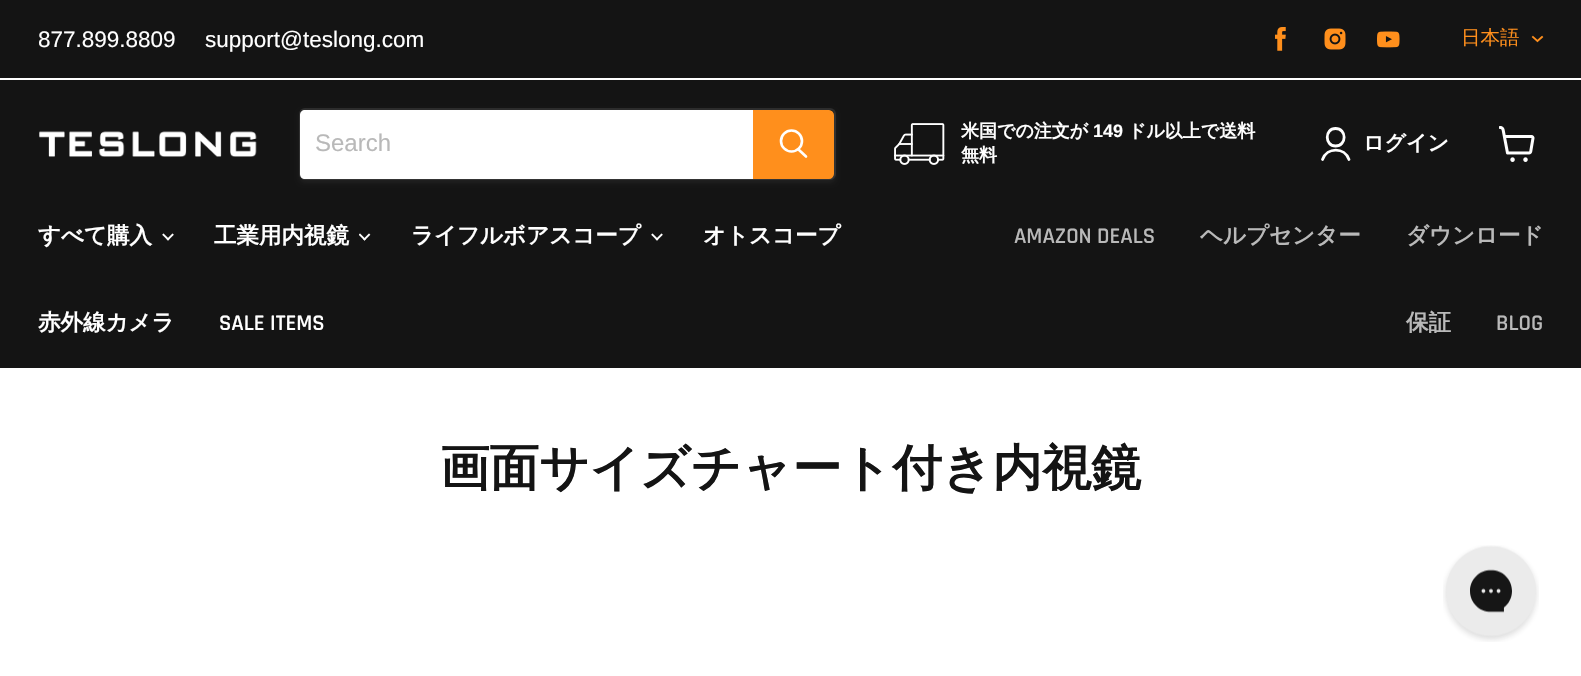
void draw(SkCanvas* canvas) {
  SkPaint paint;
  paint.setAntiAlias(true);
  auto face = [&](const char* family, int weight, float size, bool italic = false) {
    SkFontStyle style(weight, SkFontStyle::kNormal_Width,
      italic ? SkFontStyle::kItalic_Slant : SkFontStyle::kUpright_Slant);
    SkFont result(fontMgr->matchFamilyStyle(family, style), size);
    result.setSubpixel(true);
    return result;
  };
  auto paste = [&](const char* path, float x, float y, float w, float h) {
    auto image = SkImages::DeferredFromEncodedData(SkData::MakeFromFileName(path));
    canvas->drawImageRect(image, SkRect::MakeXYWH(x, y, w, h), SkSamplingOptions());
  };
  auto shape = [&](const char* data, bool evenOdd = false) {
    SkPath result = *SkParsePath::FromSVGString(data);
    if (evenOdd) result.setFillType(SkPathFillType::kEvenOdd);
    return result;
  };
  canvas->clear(0xffffffff);
  paint.setColor(0xff141414);
  canvas->drawRect(SkRect::MakeXYWH(0, 0, 1581, 78), paint);
  paste("img/1.png", 1275, 27, 11, 24);
  paste("img/2.png", 1324, 28, 22, 22);
  paste("img/3.png", 1377, 31, 23, 17);
  paint.setStroke(true);
  paint.setStrokeWidth(1.9f);
  paint.setStrokeCap(SkPaint::kSquare_Cap);
  paint.setColor(0xffff8f1c);
  canvas->drawPath(shape("M1537.5 41L1542 37M1537.5 41L1533 37"), paint);
  paint.setStroke(false);
  paint.setColor(0xff141414);
  canvas->drawRect(SkRect::MakeXYWH(0, 80, 1581, 288), paint);
  paste("img/4.png", 39, 131, 218, 26);
  paint.setColor(0x1c808080);
  paint.setMaskFilter(SkMaskFilter::MakeBlur(kNormal_SkBlurStyle, 2));
  canvas->drawRoundRect(SkRect::MakeXYWH(299, 111, 537, 72), 6, 6, paint);
  paint.setMaskFilter(nullptr);
  paint.setStroke(true);
  paint.setStrokeWidth(2);
  paint.setStrokeCap(SkPaint::kButt_Cap);
  paint.setColor(0x33808080);
  canvas->drawRoundRect(SkRect::MakeXYWH(300, 109, 535, 70), 5, 5, paint);
  paint.setStroke(false);
  paint.setColor(0xffffffff);
  canvas->drawPath(shape("M305 110H753V179H305C302 179 300 177 300 174V115C300 112 302 110 305 110Z"), paint);
  paint.setColor(0xffff8f1c);
  canvas->drawPath(shape("M754 111H829C831 111 833 113 833 115V174C833 176 831 178 829 178H754Z"), paint);
  paint.setStroke(true);
  canvas->drawPath(shape("M754 111H829C831 111 833 113 833 115V174C833 176 831 178 829 178H754Z"), paint);
  paint.setStrokeWidth(2.6f);
  paint.setStrokeCap(SkPaint::kRound_Cap);
  paint.setColor(0xffffffff);
  canvas->drawPath(shape("M806 156.5L798.5 149.5"), paint);
  paint.setStrokeCap(SkPaint::kButt_Cap);
  canvas->drawCircle(791.5f, 141, 10.5f, paint);
  paste("img/5.png", 894, 123, 51, 42);
  paint.setStrokeWidth(2.8f);
  paint.setStrokeCap(SkPaint::kRound_Cap);
  paint.setStrokeJoin(SkPaint::kRound_Join);
  canvas->drawPath(shape("M1335.5 146C1347 146 1347 128.5 1335.5 128.5C1324.5 128.5 1324.5 146 1335.5 146ZM1349 159.5C1344.5 147 1327 147 1322.5 159.5"), paint);
  paste("img/6.png", 1499, 126, 36, 36);
  paste("img/7.png", 162, 233, 12, 8);
  paste("img/8.png", 359, 233, 12, 8);
  paste("img/7.png", 651, 233, 12, 8);
  paste("img/9.png", 1443, 545, 96, 97);
  auto f0 = face("Arimo", 400, 22.5f);
  paint.setStroke(false);
  canvas->drawString("877.899.8809", 38, 47, f0, paint);
  canvas->drawString("support@teslong.com", 205, 47, f0, paint);
  auto f1 = face("WenQuanYi Zen Hei", 500, 19.5f);
  paint.setColor(0xffff8f1c);
  canvas->drawString("日本語", 1461, 44, f1, paint);
  auto f2 = face("Arimo", 400, 24);
  paint.setColor(0xffb9b9b9);
  canvas->drawString("Search", 315, 151, f2, paint);
  auto f3 = face("WenQuanYi Zen Hei", 700, 18);
  paint.setColor(0xffffffff);
  canvas->drawString("米国での注文が", 961, 137, f3, paint);
  auto f4 = face("Arimo", 700, 18);
  canvas->drawString("149", 1093, 137, f4, paint);
  canvas->drawString("ドル以上で送料", 1128, 137, f3, paint);
  canvas->drawString("無料", 961, 161, f3, paint);
  auto f5 = face("WenQuanYi Zen Hei", 700, 21);
  canvas->drawString("ログイン", 1363, 150, f5, paint);
  auto f6 = face("WenQuanYi Zen Hei", 700, 22.5f);
  {
    const struct { const char* s; float x, y; } items[] = {
      {"すべて購入", 38, 243},
      {"工業用内視鏡", 214, 243},
      {"ライフルボアスコープ", 411, 243},
      {"オトスコープ", 703, 243},
      {"赤外線カメラ", 38, 330},
    };
    for (auto [s, x, y] : items) {
      canvas->drawString(s, x, y, f6, paint);
    }
  }
  auto f7 = face("Rajdhani", 600, 22.5f);
  canvas->drawString("SALE ITEMS", 219, 330, f7, paint);
  paint.setColor(0xffb9b9b9);
  canvas->drawString("AMAZON DEALS", 1014, 243, f7, paint);
  {
    const struct { const char* s; float x, y; } items[] = {
      {"ヘルプセンター", 1200, 243},
      {"ダウンロード", 1406, 243},
      {"保証", 1406, 330},
    };
    for (auto [s, x, y] : items) {
      canvas->drawString(s, x, y, f6, paint);
    }
  }
  canvas->drawString("BLOG", 1496, 330, f7, paint);
  auto f8 = face("WenQuanYi Zen Hei", 700, 49.5f);
  paint.setColor(0xff141414);
  canvas->drawString("画面サイズチャート付き内視鏡", 440, 485, f8, paint);
}
